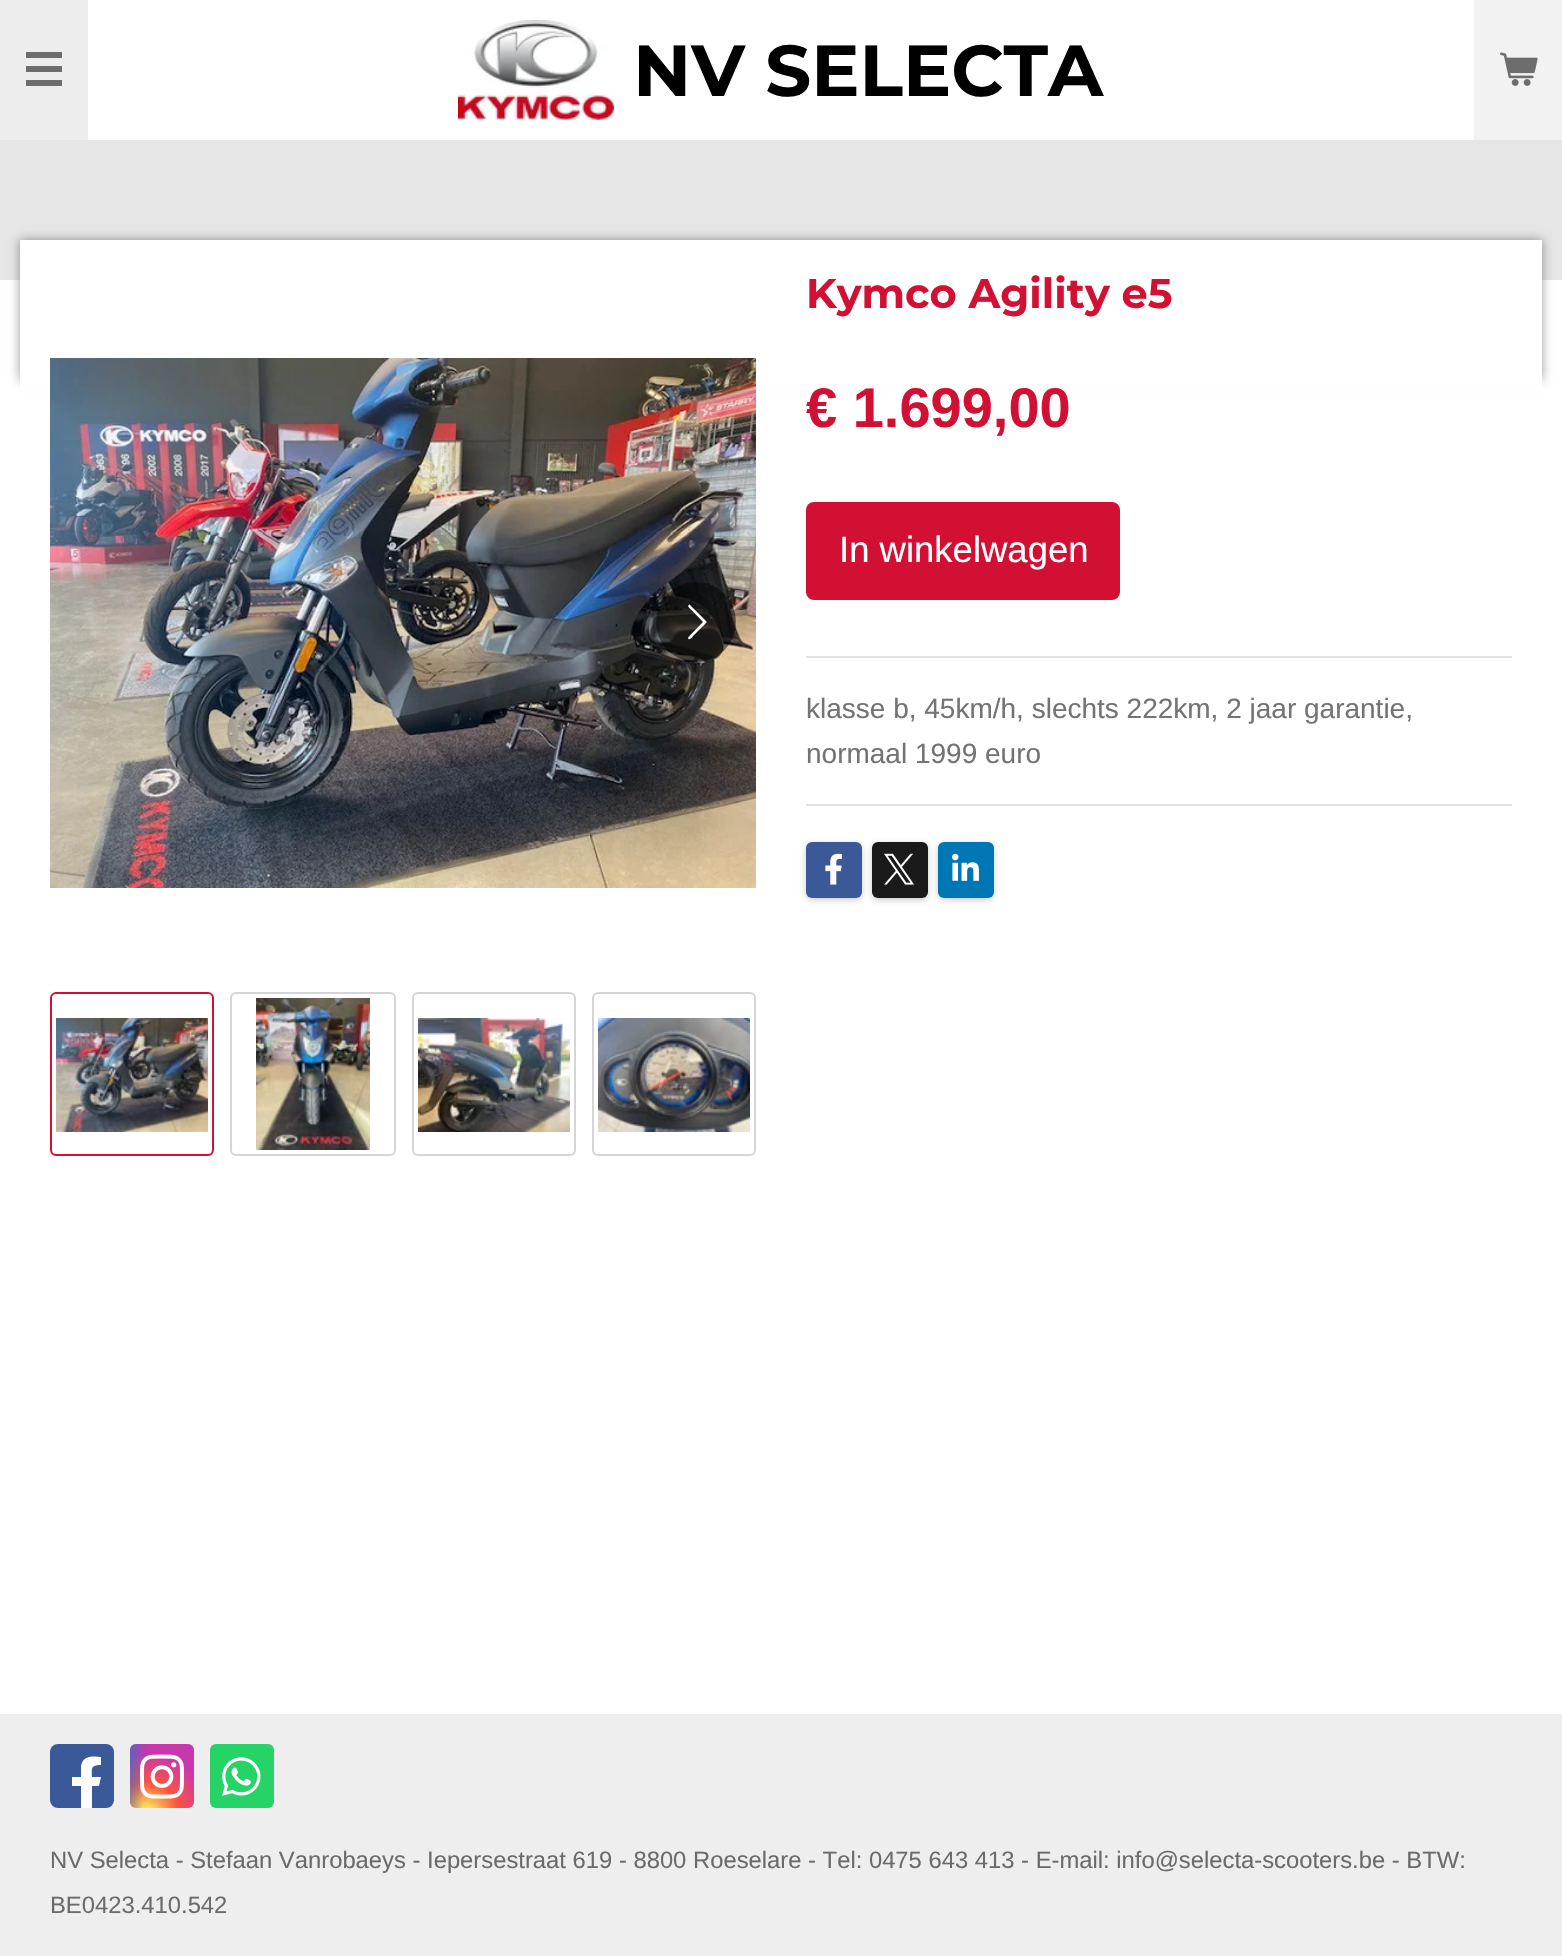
void draw(SkCanvas* canvas) {
  SkPaint paint;
  paint.setAntiAlias(true);
  auto face = [&](const char* family, int weight, float size, bool italic = false) {
    SkFontStyle style(weight, SkFontStyle::kNormal_Width,
      italic ? SkFontStyle::kItalic_Slant : SkFontStyle::kUpright_Slant);
    SkFont result(fontMgr->matchFamilyStyle(family, style), size);
    result.setSubpixel(true);
    return result;
  };
  auto paste = [&](const char* path, float x, float y, float w, float h) {
    auto image = SkImages::DeferredFromEncodedData(SkData::MakeFromFileName(path));
    canvas->drawImageRect(image, SkRect::MakeXYWH(x, y, w, h), SkSamplingOptions());
  };
  auto shape = [&](const char* data, bool evenOdd = false) {
    SkPath result = *SkParsePath::FromSVGString(data);
    if (evenOdd) result.setFillType(SkPathFillType::kEvenOdd);
    return result;
  };
  canvas->clear(0xffffffff);
  {
    const struct { float x, y, w, h; SkColor color; } items[] = {
      {0, 0, 88, 140, 0xffededed},
      {26, 66, 36, 6, 0xff6d6d6d},
      {26, 52, 36, 6, 0xff6d6d6d},
      {26, 80, 36, 6, 0xff6d6d6d},
    };
    for (auto [x, y, w, h, color] : items) {
      paint.setColor(color);
      canvas->drawRect(SkRect::MakeXYWH(x, y, w, h), paint);
    }
  }
  paste("img/1.png", 458, 20, 156, 100);
  paint.setColor(0xfff2f2f2);
  canvas->drawRect(SkRect::MakeXYWH(1474, 0, 88, 140), paint);
  paste("img/2.png", 1500, 52, 38, 34);
  paint.setColor(0xffe6e6e6);
  canvas->drawRect(SkRect::MakeXYWH(0, 140, 1562, 140), paint);
  paint.setColor(0x66000000);
  paint.setMaskFilter(SkMaskFilter::MakeBlur(kNormal_SkBlurStyle, 5));
  canvas->drawRect(SkRect::MakeXYWH(20, 240, 1522, 140), paint);
  paint.setMaskFilter(nullptr);
  paint.setColor(0xffffffff);
  canvas->drawRect(SkRect::MakeXYWH(20, 240, 1522, 150), paint);
  paste("img/3.png", 50, 358, 706, 530);
  paint.setColor(0x80000000);
  canvas->drawCircle(696, 622, 40, paint);
  paint.setColor(0xffffffff);
  canvas->drawPath(shape("M688.5 637L703 622L691 609.5C690.5 609 686 605.5 689.5 604.5L690 605L706.5 621.5V622.5L693 636C693 636.5 689 641.5 688 638Z"), paint);
  paint.setStroke(true);
  paint.setStrokeWidth(2);
  paint.setColor(0xffd21034);
  canvas->drawRoundRect(SkRect::MakeXYWH(51, 993, 162, 162), 5, 5, paint);
  paste("img/4.png", 56, 1018, 152, 114);
  paint.setColor(0xffd5d5d5);
  canvas->drawRoundRect(SkRect::MakeXYWH(231, 993, 164, 162), 5, 5, paint);
  paste("img/5.png", 256, 998, 114, 152);
  canvas->drawRoundRect(SkRect::MakeXYWH(413, 993, 162, 162), 5, 5, paint);
  paste("img/6.png", 418, 1018, 152, 114);
  canvas->drawRoundRect(SkRect::MakeXYWH(593, 993, 162, 162), 5, 5, paint);
  paste("img/7.png", 598, 1018, 152, 114);
  paint.setStroke(false);
  paint.setColor(0xffd21034);
  canvas->drawRoundRect(SkRect::MakeXYWH(806, 502, 314, 98), 8, 8, paint);
  paint.setColor(0xffe3e3e3);
  canvas->drawRect(SkRect::MakeXYWH(806, 656, 706, 2), paint);
  canvas->drawRect(SkRect::MakeXYWH(806, 804, 706, 2), paint);
  paint.setColor(0x33000000);
  paint.setMaskFilter(SkMaskFilter::MakeBlur(kNormal_SkBlurStyle, 3));
  canvas->drawRoundRect(SkRect::MakeXYWH(806, 844, 56, 56), 6, 6, paint);
  paint.setMaskFilter(nullptr);
  paint.setColor(0xff3b5998);
  canvas->drawRoundRect(SkRect::MakeXYWH(806, 842, 56, 56), 6, 6, paint);
  paste("img/8.png", 825, 853, 17, 32);
  paint.setColor(0x33000000);
  paint.setMaskFilter(SkMaskFilter::MakeBlur(kNormal_SkBlurStyle, 3));
  canvas->drawRoundRect(SkRect::MakeXYWH(872, 844, 56, 56), 6, 6, paint);
  paint.setMaskFilter(nullptr);
  paint.setColor(0xff1a1a1a);
  canvas->drawRoundRect(SkRect::MakeXYWH(872, 842, 56, 56), 6, 6, paint);
  paste("img/9.png", 884, 853, 30, 32);
  paint.setColor(0x33000000);
  paint.setMaskFilter(SkMaskFilter::MakeBlur(kNormal_SkBlurStyle, 3));
  canvas->drawRoundRect(SkRect::MakeXYWH(938, 844, 56, 56), 6, 6, paint);
  paint.setMaskFilter(nullptr);
  paint.setColor(0xff0077b5);
  canvas->drawRoundRect(SkRect::MakeXYWH(938, 842, 56, 56), 6, 6, paint);
  paste("img/10.png", 952, 853, 27, 28);
  paint.setColor(0xffeeeeee);
  canvas->drawRect(SkRect::MakeXYWH(0, 1714, 1562, 242), paint);
  paint.setColor(0xff3b5998);
  canvas->drawRoundRect(SkRect::MakeXYWH(50, 1744, 64, 64), 8, 8, paint);
  paint.setColor(0xffffffff);
  canvas->drawPath(shape("M99 1786H92V1808H81V1786H72V1777H81V1766C83 1755 93 1756 101 1757V1765C90 1765 92 1769 92 1777H101Z"), paint);
  {
    const SkColor colors[] = {0xffffdd55, 0xffffdd55, 0xffff543e, 0xffc837ab};
    const float stops[] = {0, 0.1f, 0.5f, 1};
    SkMatrix m = SkMatrix::Translate(147, 1812).preScale(62, 58);
    paint.setShader(SkGradientShader::MakeRadial({0, 0}, 1, colors, stops, 4, SkTileMode::kClamp, 0, &m));
    paint.setAlpha(255);
  }
  canvas->drawRoundRect(SkRect::MakeXYWH(130, 1744, 64, 64), 6, 6, paint);
  {
    const SkColor colors[] = {0xff3771c8, 0xff3771c8, 0x003771c8};
    const float stops[] = {0, 0.13f, 1};
    SkMatrix m = SkMatrix::Translate(119, 1749).preScale(28, 115);
    paint.setShader(SkGradientShader::MakeRadial({0, 0}, 1, colors, stops, 3, SkTileMode::kClamp, 0, &m));
    paint.setAlpha(255);
  }
  canvas->drawRoundRect(SkRect::MakeXYWH(130, 1744, 64, 64), 6, 6, paint);
  paste("img/11.png", 140, 1754, 44, 45);
  paint.setShader(nullptr);
  paint.setColor(0xff25d366);
  canvas->drawRoundRect(SkRect::MakeXYWH(210, 1744, 64, 64), 6, 6, paint);
  paste("img/12.png", 222, 1757, 39, 39);
  auto f0 = face("Montserrat", 700, 72);
  paint.setColor(0xff000000);
  canvas->drawString("NV SELECTA", 633, 96, f0, paint);
  auto f1 = face("Montserrat", 700, 41.5f);
  paint.setColor(0xffd21034);
  canvas->drawString("Kymco Agility e5", 806, 308, f1, paint);
  auto f2 = face("Liberation Sans", 700, 56);
  canvas->drawString("€ 1.699,00", 806, 427, f2, paint);
  auto f3 = face("Liberation Sans", 400, 36.5f);
  paint.setColor(0xffffffff);
  canvas->drawString("In winkelwagen", 839, 562, f3, paint);
  auto f4 = face("Liberation Sans", 400, 28);
  paint.setColor(0xff737373);
  canvas->drawString("klasse b, 45km/h, slechts 222km, 2 jaar garantie,", 806, 718, f4, paint);
  canvas->drawString("normaal 1999 euro", 806, 763, f4, paint);
  auto f5 = face("Liberation Sans", 400, 23.8f);
  paint.setColor(0xff6b6b6b);
  canvas->drawString("NV Selecta - Stefaan Vanrobaeys - Iepersestraat 619 - 8800 Roeselare - Tel: 0475 643 413 - E-mail: info@selecta-scooters.be - BTW:", 50, 1868, f5, paint);
  canvas->drawString("BE0423.410.542", 50, 1913, f5, paint);
}
